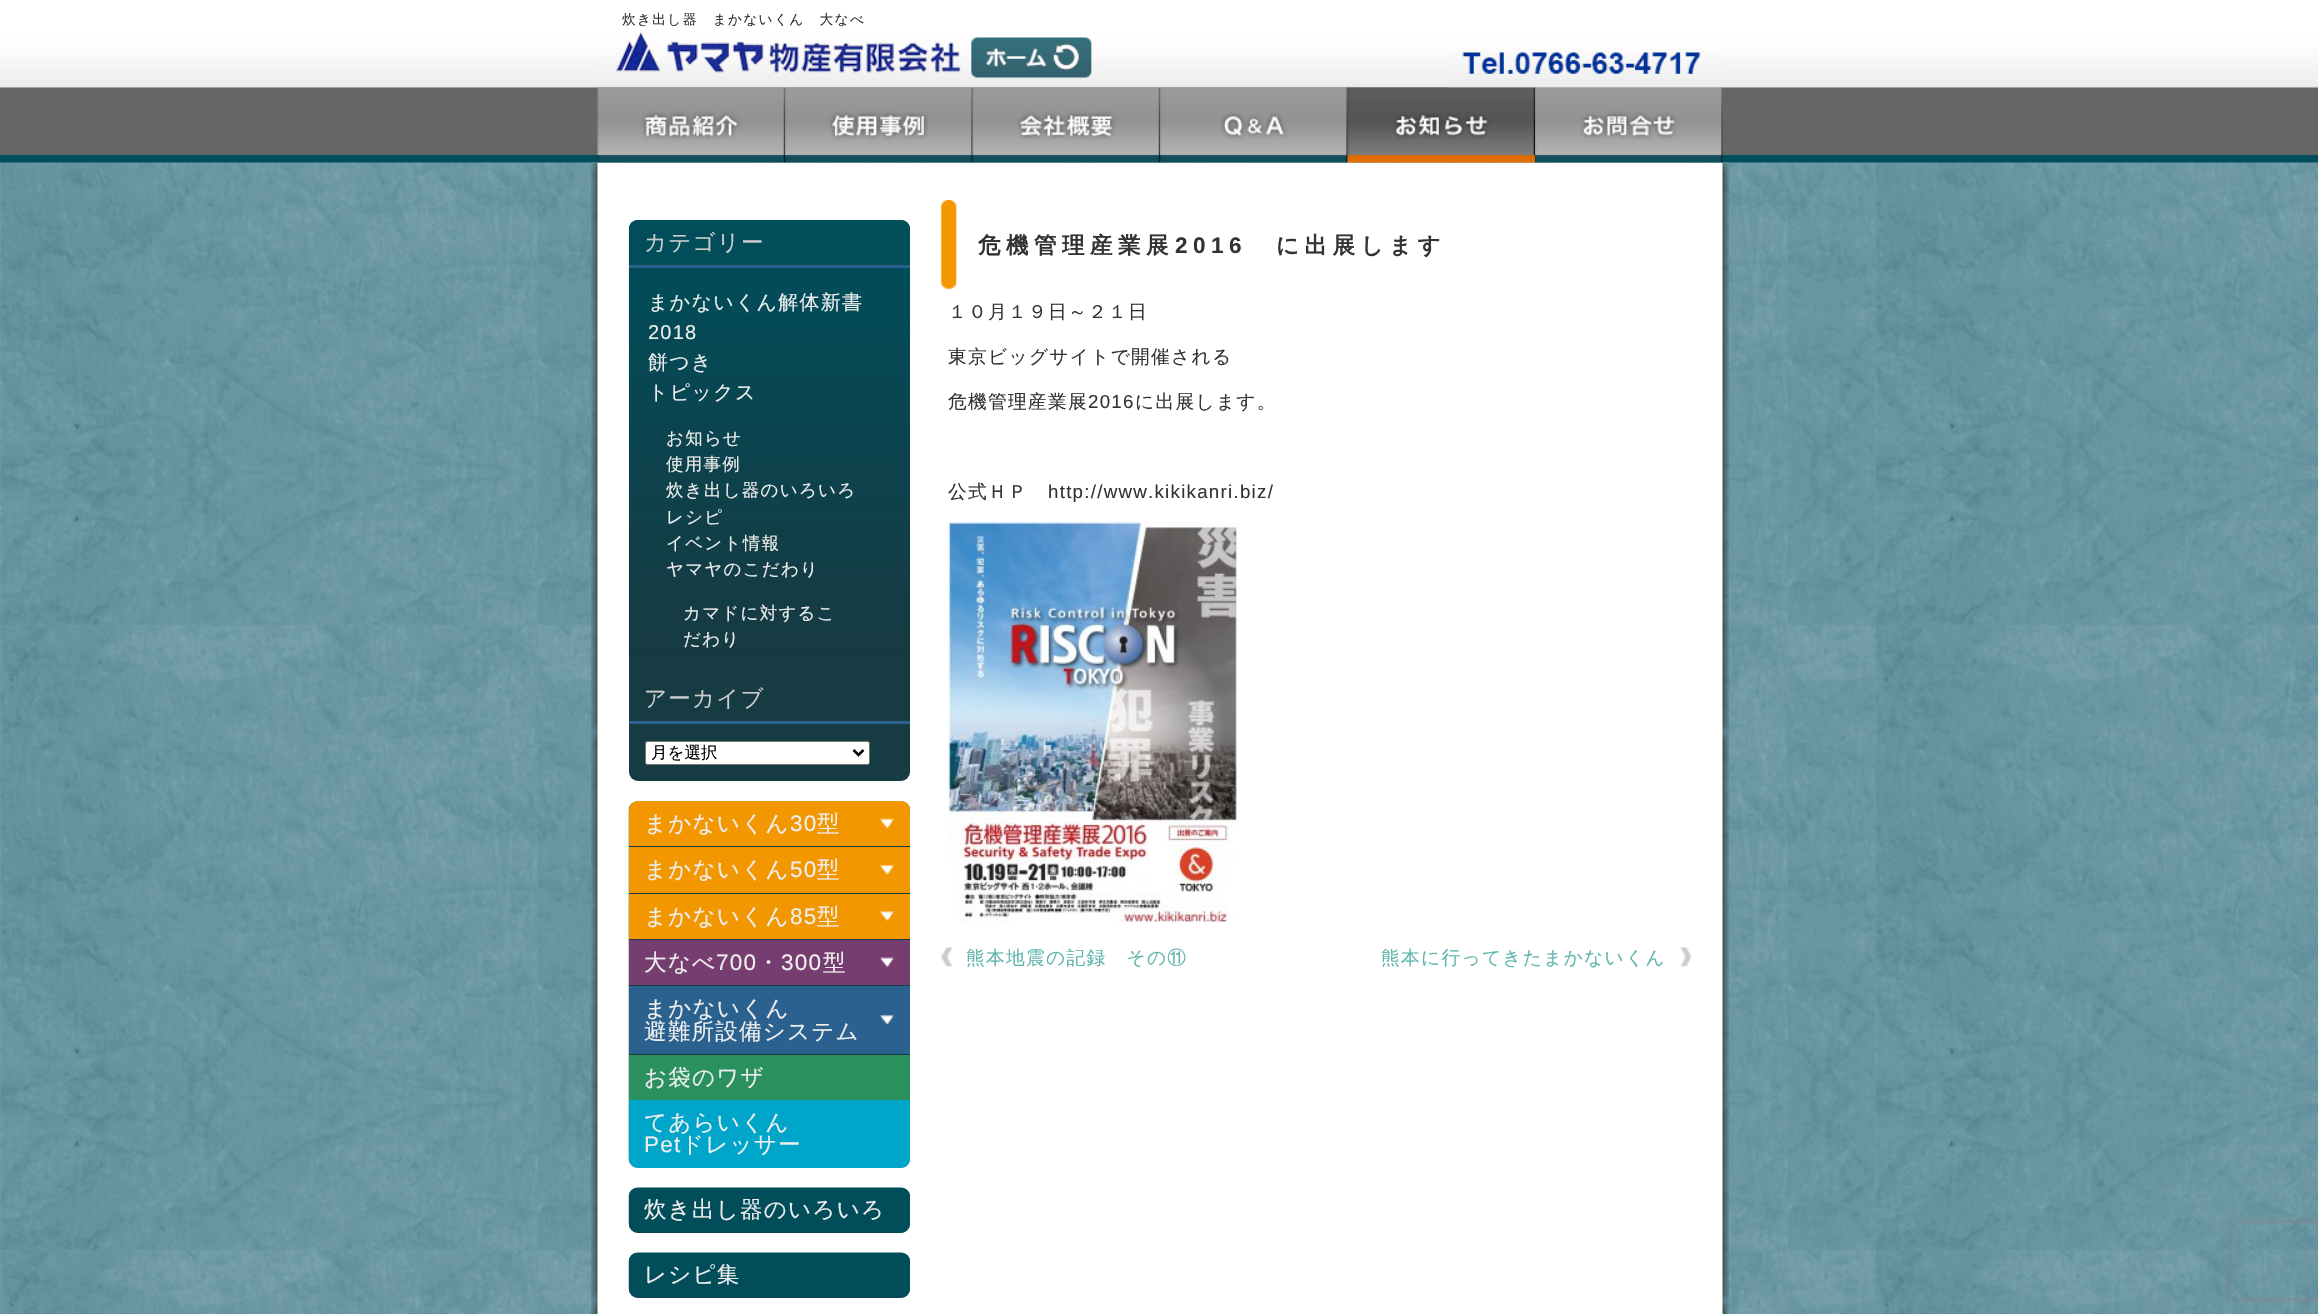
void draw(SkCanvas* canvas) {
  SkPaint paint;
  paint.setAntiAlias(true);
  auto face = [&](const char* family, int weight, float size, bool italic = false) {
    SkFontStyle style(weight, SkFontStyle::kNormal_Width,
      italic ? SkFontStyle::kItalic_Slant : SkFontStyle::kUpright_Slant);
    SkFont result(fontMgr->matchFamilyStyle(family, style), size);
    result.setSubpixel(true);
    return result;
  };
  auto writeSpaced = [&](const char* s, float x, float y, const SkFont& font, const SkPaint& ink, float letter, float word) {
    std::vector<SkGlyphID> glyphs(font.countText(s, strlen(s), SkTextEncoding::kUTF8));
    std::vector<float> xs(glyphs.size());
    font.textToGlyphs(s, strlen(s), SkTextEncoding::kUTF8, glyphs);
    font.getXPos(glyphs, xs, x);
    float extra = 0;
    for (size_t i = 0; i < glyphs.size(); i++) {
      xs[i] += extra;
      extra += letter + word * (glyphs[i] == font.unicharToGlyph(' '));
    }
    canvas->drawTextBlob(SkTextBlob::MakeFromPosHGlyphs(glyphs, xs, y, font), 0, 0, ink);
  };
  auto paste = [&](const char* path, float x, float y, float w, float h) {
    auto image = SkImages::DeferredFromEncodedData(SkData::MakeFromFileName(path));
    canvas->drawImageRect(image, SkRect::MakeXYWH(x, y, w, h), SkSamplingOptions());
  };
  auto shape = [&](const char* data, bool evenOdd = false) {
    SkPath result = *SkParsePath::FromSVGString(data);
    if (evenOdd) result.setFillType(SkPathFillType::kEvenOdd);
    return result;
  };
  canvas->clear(0xffffffff);
  paste("img/1.png", 0, 162, 2318, 1152);
  paste("img/2.png", 0, 0, 2318, 163);
  paste("img/4.png", 1447, 52, 276, 36);
  paste("img/11.png", 591, 162, 1138, 1152);
  paste("img/8.png", 1160, 87, 188, 76);
  paste("img/9.png", 1347, 87, 188, 76);
  paste("img/10.png", 1535, 87, 188, 76);
  paint.setColor(0xff163b43);
  canvas->drawRoundRect(SkRect::MakeXYWH(629, 220, 281, 561), 9, 9, paint);
  paste("img/12.png", 628, 220, 282, 438);
  paint.setColor(0xff2b618f);
  canvas->drawRect(SkRect::MakeXYWH(629, 265, 281, 3), paint);
  canvas->drawRect(SkRect::MakeXYWH(629, 721, 281, 3), paint);
  paint.setColor(0xffffffff);
  canvas->drawRoundRect(SkRect::MakeXYWH(645.5f, 741.5f, 224, 23), 2, 2, paint);
  paint.setStroke(true);
  paint.setStrokeWidth(1);
  paint.setColor(0xff767676);
  canvas->drawRoundRect(SkRect::MakeXYWH(645.5f, 741.5f, 224, 23), 2, 2, paint);
  paint.setStrokeWidth(2.5f);
  paint.setColor(0xff000000);
  canvas->drawPath(shape("M853.5 750L858.5 755L863.5 750"), paint);
  paste("img/13.png", 628, 801, 282, 367);
  paint.setStroke(false);
  paint.setColor(0xfff39700);
  canvas->drawPath(shape("M638 801H901C906 801 910 805 910 810V848H629V810C629 805 633 801 638 801Z"), paint);
  paste("img/14.png", 880, 818, 14, 11);
  paint.setColor(0xff163b43);
  canvas->drawRect(SkRect::MakeXYWH(629, 846, 281, 1), paint);
  paint.setColor(0xfff39700);
  canvas->drawRect(SkRect::MakeXYWH(629, 848, 281, 45), paint);
  paste("img/15.png", 880, 864, 14, 11);
  paint.setColor(0xff163b43);
  canvas->drawRect(SkRect::MakeXYWH(629, 893, 281, 1), paint);
  paint.setColor(0xfff39700);
  canvas->drawRect(SkRect::MakeXYWH(629, 894, 281, 45), paint);
  paste("img/16.png", 880, 911, 14, 11);
  paint.setColor(0xff163b43);
  canvas->drawRect(SkRect::MakeXYWH(629, 939, 281, 1), paint);
  paint.setColor(0xff763d71);
  canvas->drawRect(SkRect::MakeXYWH(629, 940, 281, 45), paint);
  paste("img/17.png", 880, 957, 14, 11);
  paint.setColor(0xff163b43);
  canvas->drawRect(SkRect::MakeXYWH(629, 985, 281, 1), paint);
  paint.setColor(0xff2b618f);
  canvas->drawRect(SkRect::MakeXYWH(629, 986, 281, 68), paint);
  paste("img/18.png", 880, 1014, 14, 11);
  paint.setColor(0xff163b43);
  canvas->drawRect(SkRect::MakeXYWH(629, 1054, 281, 1), paint);
  paint.setColor(0xff29905e);
  canvas->drawRect(SkRect::MakeXYWH(629, 1055, 281, 45), paint);
  paint.setColor(0xff00a6ca);
  canvas->drawPath(shape("M629 1100H910V1159C910 1164 906 1168 901 1168H638C633 1168 629 1164 629 1159Z"), paint);
  paint.setColor(0xff163b43);
  canvas->drawRoundRect(SkRect::MakeXYWH(629, 1188, 281, 45), 9, 9, paint);
  paste("img/19.png", 628, 1187, 283, 46);
  canvas->drawRoundRect(SkRect::MakeXYWH(629, 1253, 281, 45), 9, 9, paint);
  paste("img/19.png", 628, 1252, 283, 46);
  paste("img/20.png", 941, 200, 16, 89);
  paste("img/21.png", 948, 522, 290, 401);
  paste("img/22.png", 941, 947, 12, 20);
  paste("img/23.png", 1680, 947, 12, 20);
  canvas->save();
  canvas->clipPath(shape("M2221 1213H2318V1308H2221ZM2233.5 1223H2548.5C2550 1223 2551 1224 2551 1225.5V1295.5C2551 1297 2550 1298 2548.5 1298H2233.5C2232 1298 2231 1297 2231 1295.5V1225.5C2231 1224 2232 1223 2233.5 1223Z", true), true);
  paint.setColor(0xff808080);
  paint.setMaskFilter(SkMaskFilter::MakeBlur(kNormal_SkBlurStyle, 3));
  canvas->drawRoundRect(SkRect::MakeXYWH(2231, 1223, 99, 75), 2.5f, 2.5f, paint);
  paint.setMaskFilter(nullptr);
  canvas->restore();
  auto f0 = face("WenQuanYi Zen Hei", 500, 13.75f);
  paint.setColor(0xff333333);
  writeSpaced("炊き出し器　まかないくん　大なべ", 622, 24, f0, paint, 1.25f, 0);
  paste("img/3.png", 597, 26, 501, 63);
  paste("img/5.png", 597, 87, 188, 76);
  paste("img/6.png", 785, 87, 188, 76);
  paste("img/7.png", 972, 87, 188, 76);
  auto f1 = face("WenQuanYi Zen Hei", 500, 22.5f);
  paint.setColor(0xffcccccc);
  writeSpaced("カテゴリー", 644, 250, f1, paint, 1.25f, 0);
  auto f2 = face("WenQuanYi Zen Hei", 500, 20);
  paint.setColor(0xffeeeeee);
  writeSpaced("まかないくん解体新書", 648, 309, f2, paint, 1.25f, 0);
  auto f3 = face("Liberation Sans", 400, 20);
  writeSpaced("2018", 648, 339, f3, paint, 1.25f, 0);
  writeSpaced("餅つき", 648, 369, f2, paint, 1.25f, 0);
  writeSpaced("トピックス", 648, 399, f2, paint, 1.25f, 0);
  auto f4 = face("WenQuanYi Zen Hei", 500, 17.5f);
  {
    const struct { const char* s; float x, y; } items[] = {
      {"お知らせ", 666, 444},
      {"使用事例", 666, 470},
      {"炊き出し器のいろいろ", 666, 496},
      {"レシピ", 666, 523},
      {"イベント情報", 666, 549},
      {"ヤマヤのこだわり", 666, 575},
      {"カマドに対するこ", 683, 619},
      {"だわり", 683, 645},
    };
    for (auto [s, x, y] : items) {
      writeSpaced(s, x, y, f4, paint, 1.25f, 0);
    }
  }
  paint.setColor(0xffcccccc);
  writeSpaced("アーカイブ", 644, 706, f1, paint, 1.25f, 0);
  auto f5 = face("WenQuanYi Zen Hei", 500, 16.5f);
  paint.setColor(0xff000000);
  canvas->drawString("月を選択", 651, 758, f5, paint);
  paint.setColor(0xffeeeeee);
  writeSpaced("まかないくん", 644, 831, f1, paint, 1.25f, 0);
  auto f6 = face("Liberation Sans", 400, 22.5f);
  writeSpaced("30", 790, 831, f6, paint, 1.25f, 0);
  writeSpaced("型", 817, 831, f1, paint, 1.25f, 0);
  writeSpaced("まかないくん", 644, 877, f1, paint, 1.25f, 0);
  writeSpaced("50", 790, 877, f6, paint, 1.25f, 0);
  writeSpaced("型", 817, 877, f1, paint, 1.25f, 0);
  writeSpaced("まかないくん", 644, 924, f1, paint, 1.25f, 0);
  writeSpaced("85", 790, 924, f6, paint, 1.25f, 0);
  writeSpaced("型", 817, 924, f1, paint, 1.25f, 0);
  writeSpaced("大なべ", 644, 970, f1, paint, 1.25f, 0);
  writeSpaced("700", 716, 970, f6, paint, 1.25f, 0);
  writeSpaced("・", 757, 970, f1, paint, 1.25f, 0);
  writeSpaced("300", 781, 970, f6, paint, 1.25f, 0);
  {
    const struct { const char* s; float x, y; } items[] = {
      {"型", 823, 970},
      {"まかないくん", 644, 1016},
      {"避難所設備システム", 644, 1039},
      {"お袋のワザ", 644, 1085},
      {"てあらいくん", 644, 1130},
    };
    for (auto [s, x, y] : items) {
      writeSpaced(s, x, y, f1, paint, 1.25f, 0);
    }
  }
  writeSpaced("Pet", 644, 1152, f6, paint, 1.25f, 0);
  {
    const struct { const char* s; float x, y; } items[] = {
      {"ドレッサー", 681, 1152},
      {"炊き出し器のいろいろ", 644, 1217},
      {"レシピ集", 644, 1282},
    };
    for (auto [s, x, y] : items) {
      writeSpaced(s, x, y, f1, paint, 1.25f, 0);
    }
  }
  auto f7 = face("WenQuanYi Zen Hei", 700, 22.5f);
  paint.setColor(0xff333333);
  writeSpaced("危機管理産業展", 978, 253, f7, paint, 5.5f, 0);
  auto f8 = face("Liberation Sans", 700, 22.5f);
  writeSpaced("2016", 1175, 253, f8, paint, 5.5f, 0);
  writeSpaced("に出展します", 1276, 253, f7, paint, 5.5f, 0);
  auto f9 = face("WenQuanYi Zen Hei", 500, 18.75f);
  {
    const struct { const char* s; float x, y; } items[] = {
      {"１０月１９日～２１日", 948, 318},
      {"東京ビッグサイトで開催される", 948, 363},
      {"危機管理産業展", 948, 408},
    };
    for (auto [s, x, y] : items) {
      writeSpaced(s, x, y, f9, paint, 1.25f, 0);
    }
  }
  auto f10 = face("Liberation Sans", 400, 18.75f);
  writeSpaced("2016", 1088, 408, f10, paint, 1.25f, 0);
  writeSpaced("に出展します。", 1135, 408, f9, paint, 1.25f, 0);
  writeSpaced("公式ＨＰ", 948, 498, f9, paint, 1.25f, 0);
  writeSpaced("http://www.kikikanri.biz/", 1048, 498, f10, paint, 1.25f, 0);
  paint.setColor(0xff60b6ad);
  writeSpaced("熊本地震の記録　その⑪", 966, 964, f9, paint, 1.25f, 0);
  writeSpaced("熊本に行ってきたまかないくん", 1381, 964, f9, paint, 1.25f, 0);
}
